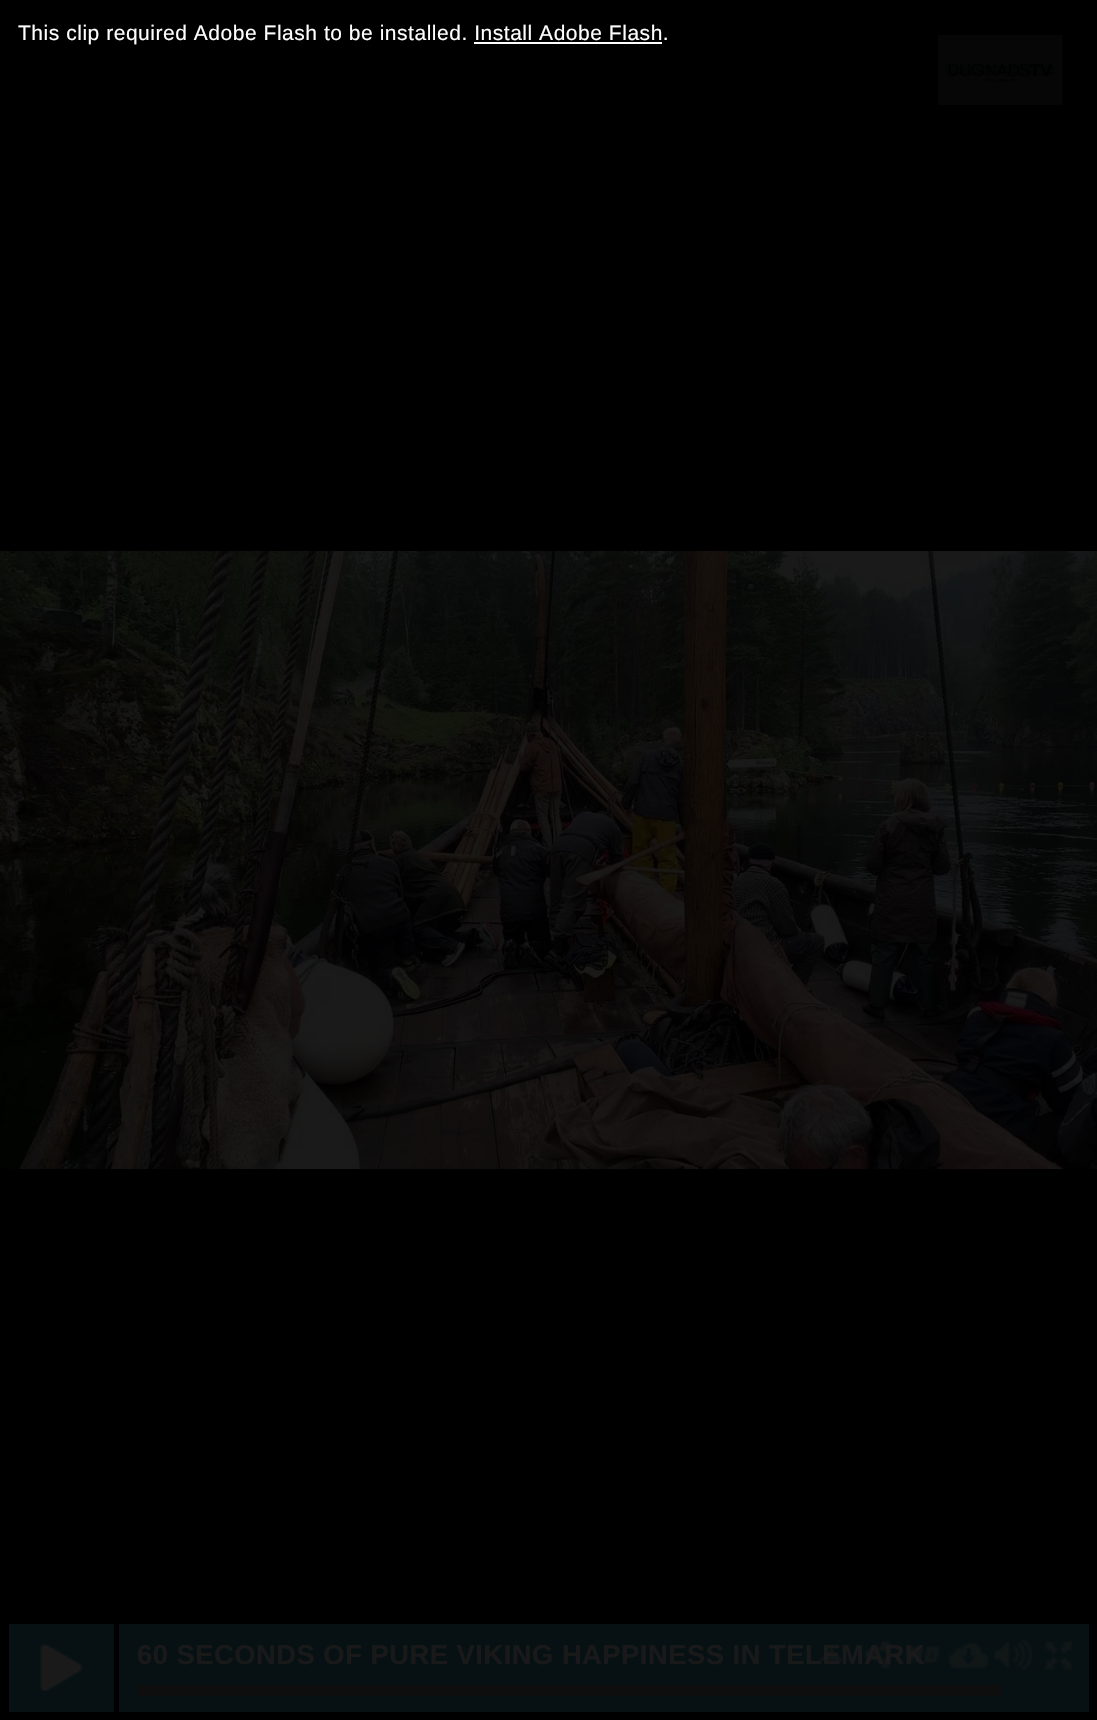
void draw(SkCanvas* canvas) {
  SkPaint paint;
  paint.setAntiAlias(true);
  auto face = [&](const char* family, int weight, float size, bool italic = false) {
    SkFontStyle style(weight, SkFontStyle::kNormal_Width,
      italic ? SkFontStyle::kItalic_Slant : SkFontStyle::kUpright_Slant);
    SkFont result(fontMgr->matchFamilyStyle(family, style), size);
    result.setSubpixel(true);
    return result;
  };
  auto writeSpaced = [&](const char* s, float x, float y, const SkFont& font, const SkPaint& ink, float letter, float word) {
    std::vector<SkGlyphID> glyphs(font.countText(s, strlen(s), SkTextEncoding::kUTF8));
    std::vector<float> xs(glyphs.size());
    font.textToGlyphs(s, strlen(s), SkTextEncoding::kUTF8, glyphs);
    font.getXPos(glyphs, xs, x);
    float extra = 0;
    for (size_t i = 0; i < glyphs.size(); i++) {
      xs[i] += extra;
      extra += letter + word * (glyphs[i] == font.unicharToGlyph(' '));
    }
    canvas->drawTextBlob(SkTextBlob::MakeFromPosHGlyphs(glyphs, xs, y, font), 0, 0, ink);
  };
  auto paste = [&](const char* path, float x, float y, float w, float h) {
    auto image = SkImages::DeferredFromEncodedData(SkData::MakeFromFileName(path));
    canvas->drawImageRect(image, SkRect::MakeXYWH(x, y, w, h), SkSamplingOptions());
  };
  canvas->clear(0xff000000);
  paint.setColor(0xffffffff);
  canvas->drawRect(SkRect::MakeXYWH(474, 42, 188, 2), paint);
  paste("img/1.png", 938, 35, 125, 70);
  paste("img/2.png", 0, 551, 1097, 618);
  paste("img/3.png", 0, 551, 1097, 1);
  paint.setColor(0xff071114);
  canvas->drawRect(SkRect::MakeXYWH(9, 1624, 105, 88), paint);
  paste("img/4.png", 39, 1644, 44, 47);
  canvas->drawRect(SkRect::MakeXYWH(119, 1624, 970, 88), paint);
  paste("img/8.png", 949, 1642, 40, 27);
  paste("img/9.png", 994, 1639, 38, 31);
  paste("img/10.png", 1045, 1641, 28, 29);
  paint.setColor(0xff0e0e0e);
  canvas->drawRect(SkRect::MakeXYWH(137, 1685, 864, 11), paint);
  auto f0 = face("Liberation Sans", 400, 21);
  paint.setColor(0xffffffff);
  writeSpaced("This clip required Adobe Flash to be installed. Install Adobe Flash.", 18, 40, f0, paint, 0.53f, 0);
  auto f1 = face("Liberation Sans", 700, 27.3f);
  paint.setColor(0xff191919);
  writeSpaced("60 SECONDS OF PURE VIKING HAPPINESS IN TELEMARK", 137, 1664, f1, paint, 0.53f, 0);
  paste("img/5.png", 819, 1648, 23, 14);
  paste("img/6.png", 865, 1641, 26, 28);
  paste("img/7.png", 909, 1646, 31, 17);
}
